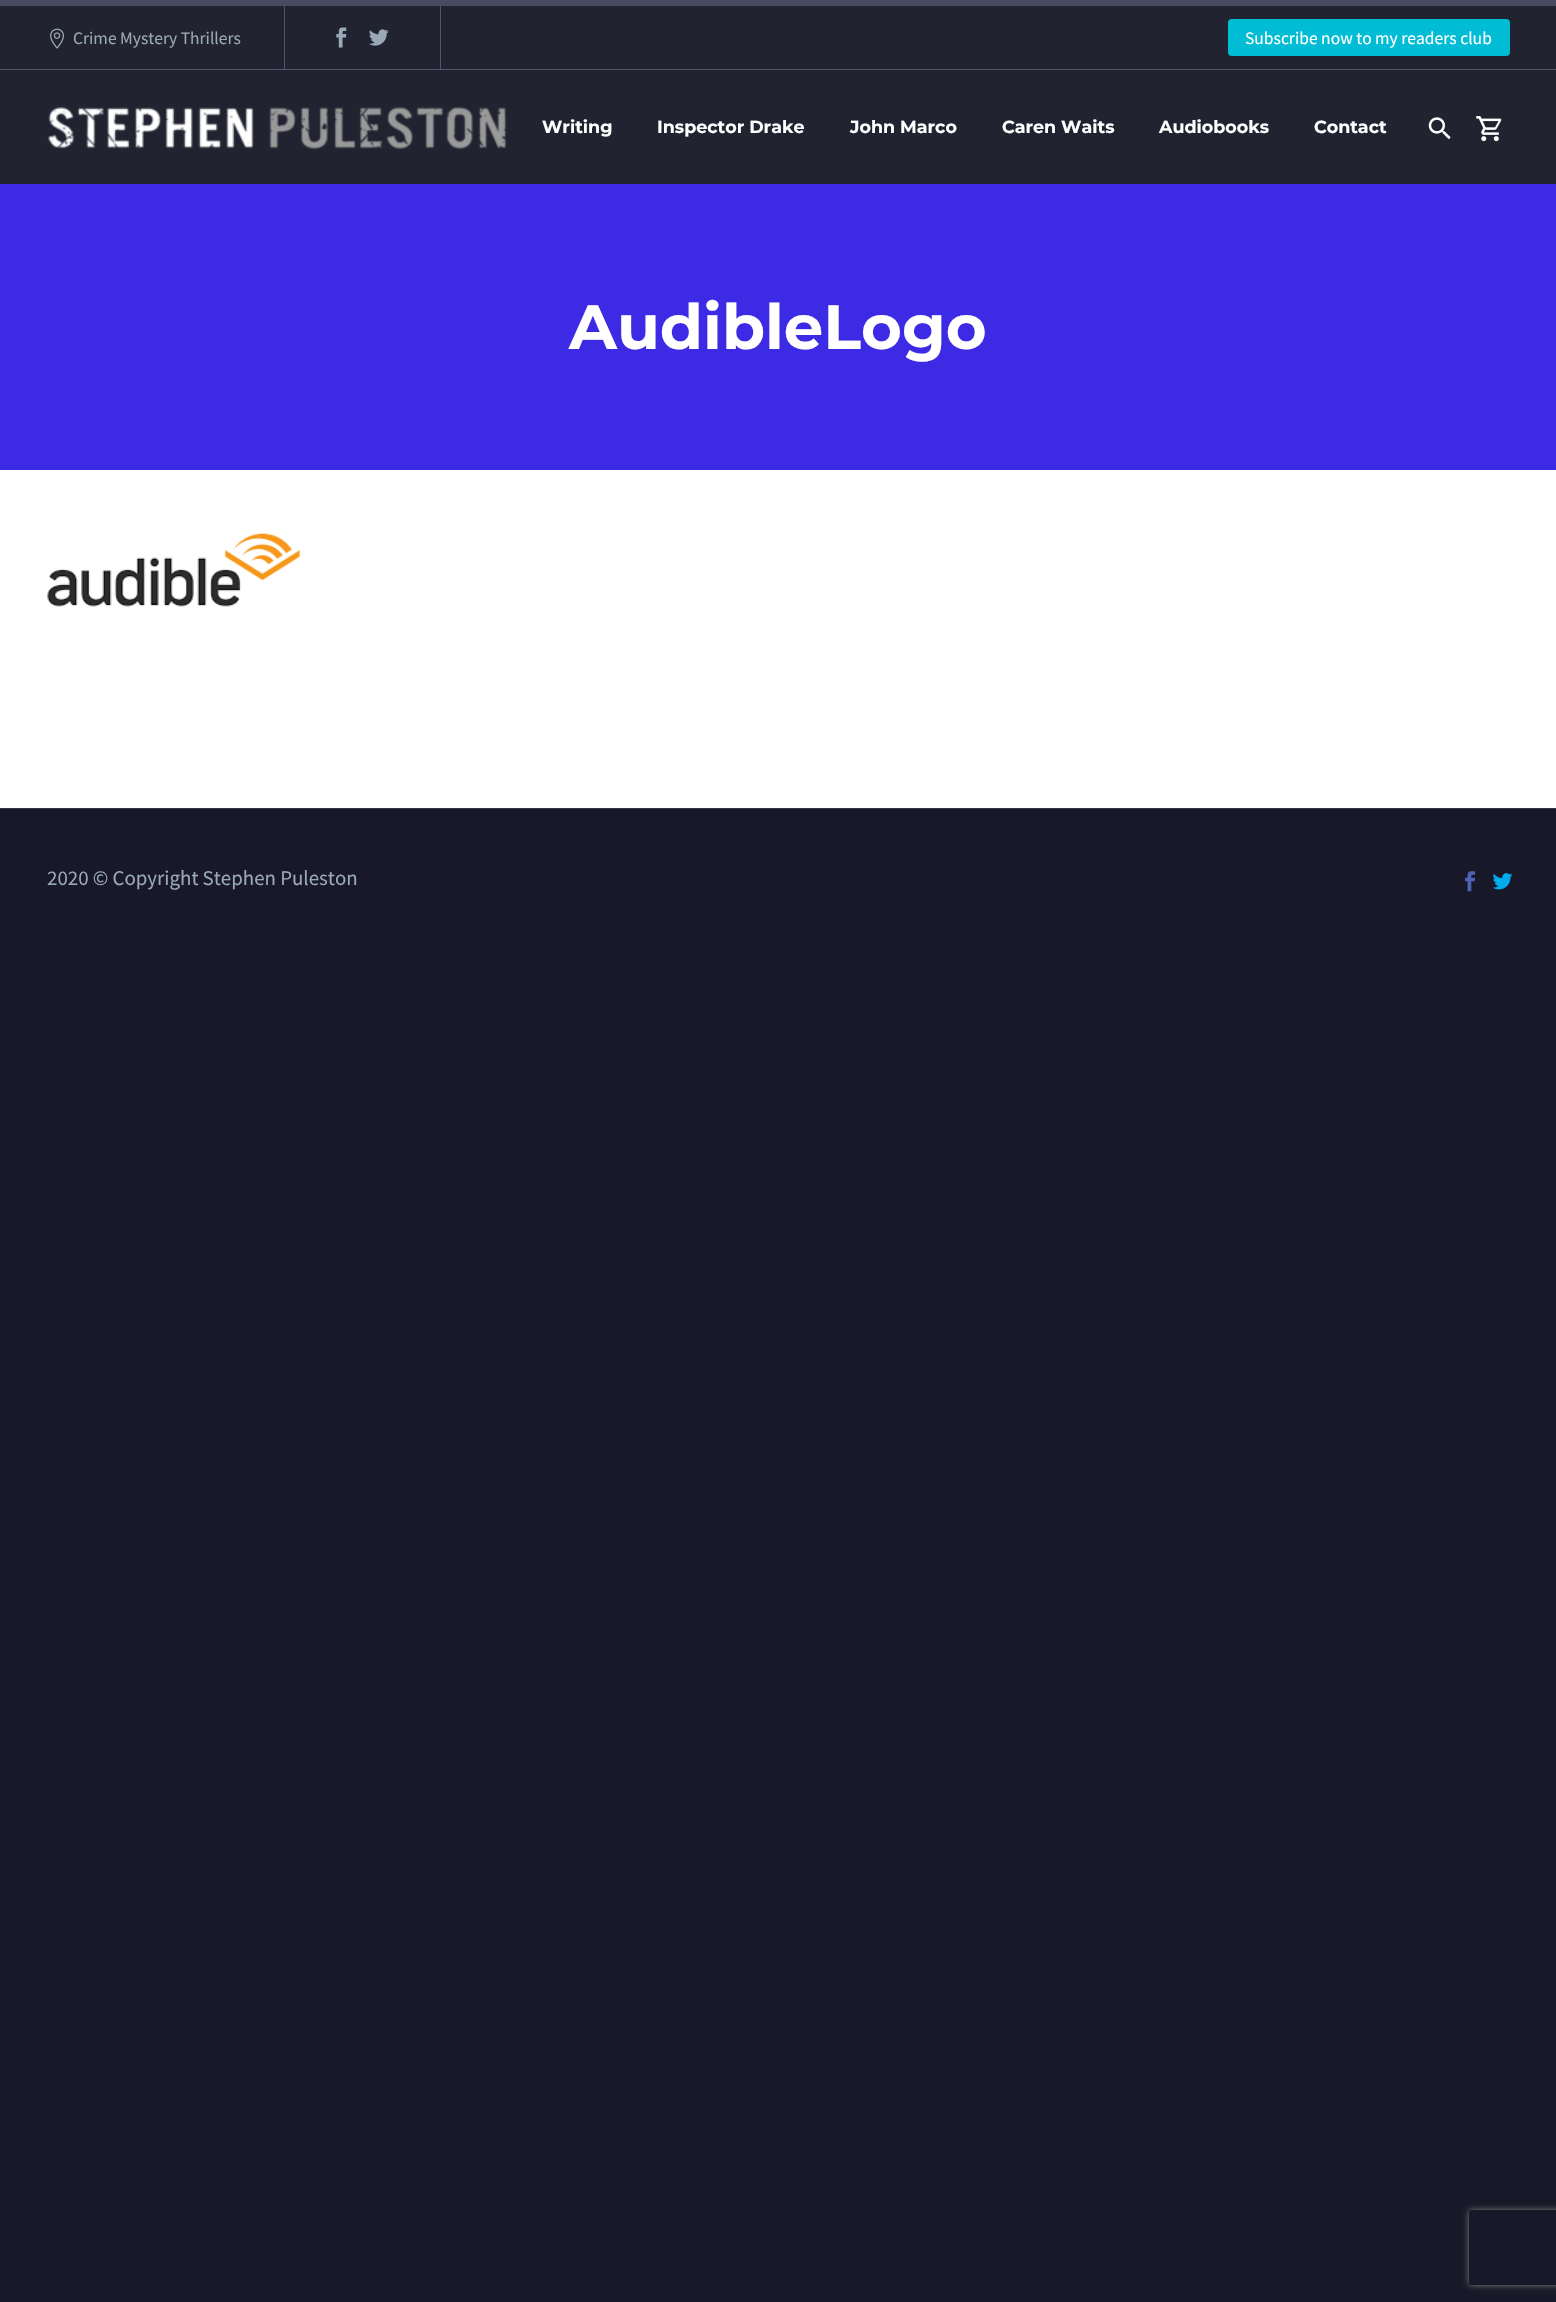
void draw(SkCanvas* canvas) {
  SkPaint paint;
  paint.setAntiAlias(true);
  auto face = [&](const char* family, int weight, float size, bool italic = false) {
    SkFontStyle style(weight, SkFontStyle::kNormal_Width,
      italic ? SkFontStyle::kItalic_Slant : SkFontStyle::kUpright_Slant);
    SkFont result(fontMgr->matchFamilyStyle(family, style), size);
    result.setSubpixel(true);
    return result;
  };
  auto paste = [&](const char* path, float x, float y, float w, float h) {
    auto image = SkImages::DeferredFromEncodedData(SkData::MakeFromFileName(path));
    canvas->drawImageRect(image, SkRect::MakeXYWH(x, y, w, h), SkSamplingOptions());
  };
  auto shape = [&](const char* data, bool evenOdd = false) {
    SkPath result = *SkParsePath::FromSVGString(data);
    if (evenOdd) result.setFillType(SkPathFillType::kEvenOdd);
    return result;
  };
  canvas->clear(0xff181828);
  {
    const struct { float x, y, w, h; SkColor color; } items[] = {
      {0, 6, 1556, 178, 0xff212331},
      {0, 0, 1556, 6, 0xff474b61},
      {0, 69, 1556, 1, 0xff51546c},
    };
    for (auto [x, y, w, h, color] : items) {
      paint.setColor(color);
      canvas->drawRect(SkRect::MakeXYWH(x, y, w, h), paint);
    }
  }
  paste("img/1.png", 50, 28, 14, 21);
  canvas->drawRect(SkRect::MakeXYWH(284, 6, 1, 63), paint);
  paste("img/2.png", 336, 27, 11, 21);
  paste("img/3.png", 369, 29, 20, 17);
  canvas->drawRect(SkRect::MakeXYWH(440, 6, 1, 63), paint);
  paint.setColor(0xff00bcd4);
  canvas->drawRoundRect(SkRect::MakeXYWH(1228, 19, 282, 37), 4, 4, paint);
  paste("img/4.png", 47, 107, 460, 42);
  paste("img/5.png", 1428, 117, 23, 23);
  paste("img/6.png", 1476, 116, 26, 26);
  paint.setColor(0xff3c2ae4);
  canvas->drawRect(SkRect::MakeXYWH(0, 184, 1556, 286), paint);
  paint.setColor(0xffffffff);
  canvas->drawRect(SkRect::MakeXYWH(0, 470, 1556, 338), paint);
  paste("img/7.png", 47, 533, 253, 74);
  paint.setColor(0xff313646);
  canvas->drawRect(SkRect::MakeXYWH(0, 808, 1556, 1), paint);
  paste("img/8.png", 1465, 871, 10, 21);
  paste("img/9.png", 1492, 873, 21, 17);
  canvas->save();
  canvas->clipPath(shape("M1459 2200H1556V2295H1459ZM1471.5 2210H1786.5C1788 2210 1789 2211 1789 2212.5V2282.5C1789 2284 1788 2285 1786.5 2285H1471.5C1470 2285 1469 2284 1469 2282.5V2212.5C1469 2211 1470 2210 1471.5 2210Z", true), true);
  paint.setColor(0xff808080);
  paint.setMaskFilter(SkMaskFilter::MakeBlur(kNormal_SkBlurStyle, 3));
  canvas->drawRoundRect(SkRect::MakeXYWH(1469, 2210, 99, 75), 2.5f, 2.5f, paint);
  paint.setMaskFilter(nullptr);
  canvas->restore();
  auto f0 = face("Source Sans Pro", 400, 17.5f);
  paint.setColor(0xff99a9b5);
  canvas->drawString("Crime Mystery Thrillers", 73, 44, f0, paint);
  paint.setColor(0xffffffff);
  canvas->drawString("Subscribe now to my readers club", 1245, 44, f0, paint);
  auto f1 = face("Montserrat", 700, 17.5f);
  {
    const struct { const char* s; float x, y; } items[] = {
      {"Writing", 542, 133},
      {"Inspector Drake", 657, 133},
      {"John Marco", 850, 133},
      {"Caren Waits", 1002, 133},
      {"Audiobooks", 1159, 133},
      {"Contact", 1314, 133},
    };
    for (auto [s, x, y] : items) {
      canvas->drawString(s, x, y, f1, paint);
    }
  }
  auto f2 = face("Montserrat", 700, 62.5f);
  canvas->drawString("AudibleLogo", 569, 349, f2, paint);
  auto f3 = face("Source Sans Pro", 400, 20.9f);
  paint.setColor(0xff99a9b5);
  canvas->drawString("2020 © Copyright Stephen Puleston", 47, 885, f3, paint);
}
